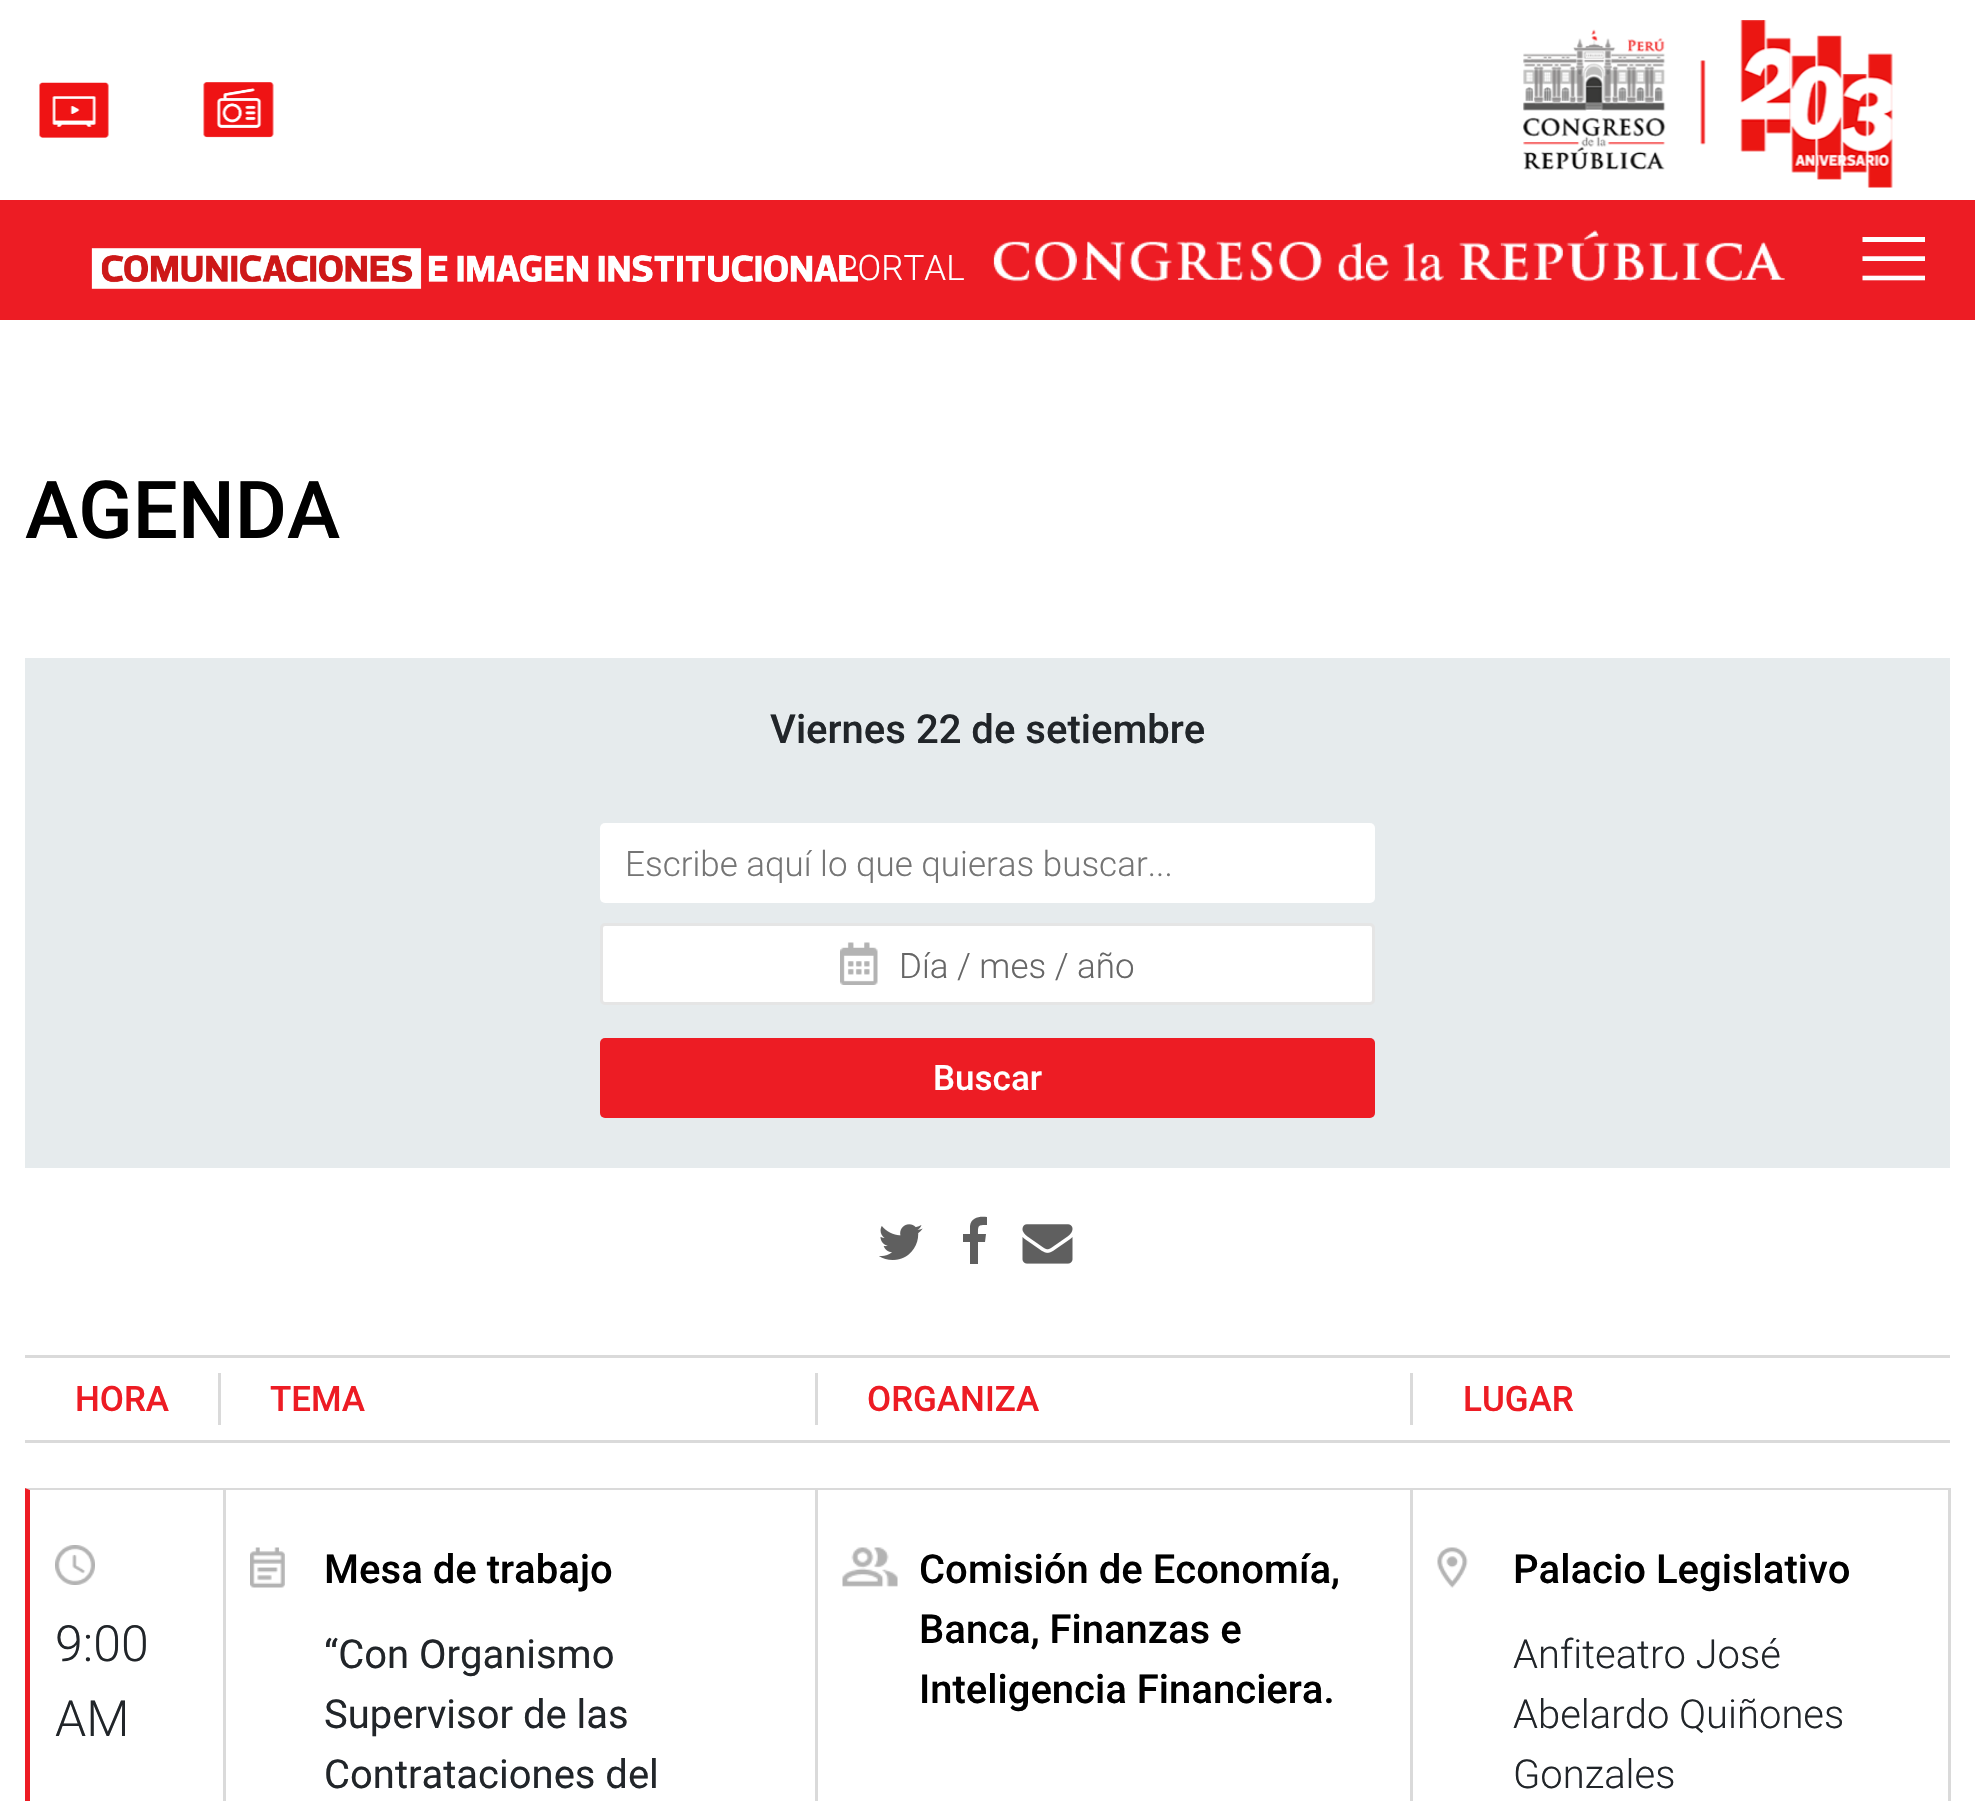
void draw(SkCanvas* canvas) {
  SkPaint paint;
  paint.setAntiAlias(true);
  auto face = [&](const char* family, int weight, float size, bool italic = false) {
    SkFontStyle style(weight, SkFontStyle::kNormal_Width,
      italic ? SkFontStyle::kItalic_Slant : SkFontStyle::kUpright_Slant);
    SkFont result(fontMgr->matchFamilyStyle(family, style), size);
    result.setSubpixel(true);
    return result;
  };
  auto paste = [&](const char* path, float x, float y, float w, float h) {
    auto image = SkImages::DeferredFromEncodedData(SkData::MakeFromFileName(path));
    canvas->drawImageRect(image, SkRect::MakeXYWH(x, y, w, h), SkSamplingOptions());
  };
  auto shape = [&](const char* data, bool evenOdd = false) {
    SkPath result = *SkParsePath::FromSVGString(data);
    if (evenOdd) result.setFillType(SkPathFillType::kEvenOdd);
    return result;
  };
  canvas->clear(0xffffffff);
  paste("img/1.png", 39, 82, 70, 56);
  paste("img/2.png", 203, 82, 71, 56);
  paste("img/3.png", 1523, 20, 370, 168);
  paint.setColor(0xffed1c24);
  canvas->drawRect(SkRect::MakeXYWH(0, 200, 1975, 120), paint);
  paste("img/4.png", 91, 248, 767, 41);
  paste("img/5.png", 993, 230, 792, 52);
  paste("img/6.png", 1862, 237, 63, 44);
  paint.setColor(0xffe6ebed);
  canvas->drawRect(SkRect::MakeXYWH(25, 658, 1925, 510), paint);
  paint.setColor(0xffffffff);
  canvas->drawRoundRect(SkRect::MakeXYWH(600, 823, 775, 80), 5, 5, paint);
  canvas->drawRoundRect(SkRect::MakeXYWH(601.5f, 924.5f, 772, 79), 3.5f, 3.5f, paint);
  paint.setStroke(true);
  paint.setStrokeWidth(3);
  paint.setColor(0xffe5e5e5);
  canvas->drawRoundRect(SkRect::MakeXYWH(601.5f, 924.5f, 772, 79), 3.5f, 3.5f, paint);
  paste("img/7.png", 840, 942, 38, 43);
  paint.setStroke(false);
  paint.setColor(0xffed1c24);
  canvas->drawRoundRect(SkRect::MakeXYWH(600, 1038, 775, 80), 5, 5, paint);
  paste("img/8.png", 879, 1224, 44, 36);
  paint.setColor(0xff5f5f5f);
  canvas->drawPath(shape("M987 1217V1225C978 1225 978 1225 978 1234H986L985 1242H978V1264H970V1242H963V1234H970V1226C971 1217 980 1216 987 1217Z"), paint);
  paste("img/9.png", 1022, 1224, 51, 40);
  {
    const struct { float x, y, w, h; SkColor color; } items[] = {
      {25, 1355, 1925, 3, 0xffdadada},
      {25, 1440, 1925, 3, 0xffdadada},
      {218, 1373, 3, 52, 0xffdadada},
      {815, 1373, 3, 52, 0xffdadada},
      {1410, 1373, 3, 52, 0xffdadada},
    };
    for (auto [x, y, w, h, color] : items) {
      paint.setColor(color);
      canvas->drawRect(SkRect::MakeXYWH(x, y, w, h), paint);
    }
  }
  canvas->drawPath(shape("M25 1488H1950L1948 1490H30Z"), paint);
  canvas->drawRect(SkRect::MakeXYWH(1948, 1488, 3, 313), paint);
  paint.setColor(0xffed1c24);
  canvas->drawPath(shape("M25 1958V1488L30 1490V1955Z"), paint);
  paste("img/10.png", 55, 1545, 40, 40);
  paint.setColor(0xffdadada);
  canvas->drawRect(SkRect::MakeXYWH(223, 1490, 3, 311), paint);
  paste("img/11.png", 250, 1547, 35, 41);
  canvas->drawRect(SkRect::MakeXYWH(815, 1490, 3, 311), paint);
  paste("img/12.png", 842, 1547, 56, 40);
  canvas->drawRect(SkRect::MakeXYWH(1410, 1490, 3, 311), paint);
  paste("img/13.png", 1437, 1547, 31, 41);
  auto f0 = face("Roboto", 300, 35);
  paint.setColor(0xffffffff);
  canvas->drawString("PORTAL", 836, 280, f0, paint);
  auto f1 = face("Roboto", 500, 80);
  paint.setColor(0xff000000);
  canvas->drawString("AGENDA", 25, 538, f1, paint);
  auto f2 = face("Roboto", 500, 40);
  paint.setColor(0xff212529);
  canvas->drawString("Viernes 22 de setiembre", 770, 743, f2, paint);
  canvas->save();
  canvas->clipRect(SkRect::MakeXYWH(625, 843, 725, 40));
  paint.setColor(0xff757575);
  canvas->drawString("Escribe aquí lo que quieras buscar...", 625, 876, f0, paint);
  canvas->restore();
  paint.setColor(0xff666666);
  canvas->drawString("Día / mes / año", 899, 978, f0, paint);
  auto f3 = face("Roboto", 500, 35);
  paint.setColor(0xffffffff);
  canvas->drawString("Buscar", 933, 1090, f3, paint);
  paint.setColor(0xffed1c24);
  {
    const struct { const char* s; float x, y; } items[] = {
      {"HORA", 75, 1411},
      {"TEMA", 270, 1411},
      {"ORGANIZA", 867, 1411},
      {"LUGAR", 1463, 1411},
    };
    for (auto [s, x, y] : items) {
      canvas->drawString(s, x, y, f3, paint);
    }
  }
  auto f4 = face("Roboto", 300, 50);
  paint.setColor(0xff212529);
  canvas->drawString("9:00", 55, 1661, f4, paint);
  canvas->drawString("AM", 55, 1736, f4, paint);
  paint.setColor(0xff000000);
  canvas->drawString("Mesa de trabajo", 324, 1583, f2, paint);
  auto f5 = face("Roboto", 400, 40);
  paint.setColor(0xff212529);
  {
    const struct { const char* s; float x, y; } items[] = {
      {"“Con Organismo", 324, 1668},
      {"Supervisor de las", 324, 1728},
      {"Contrataciones del", 324, 1788},
    };
    for (auto [s, x, y] : items) {
      canvas->drawString(s, x, y, f5, paint);
    }
  }
  paint.setColor(0xff000000);
  {
    const struct { const char* s; float x, y; } items[] = {
      {"Comisión de Economía,", 919, 1583},
      {"Banca, Finanzas e", 919, 1643},
      {"Inteligencia Financiera.", 919, 1703},
      {"Palacio Legislativo", 1513, 1583},
    };
    for (auto [s, x, y] : items) {
      canvas->drawString(s, x, y, f2, paint);
    }
  }
  auto f6 = face("Roboto", 300, 40);
  paint.setColor(0xff212529);
  {
    const struct { const char* s; float x, y; } items[] = {
      {"Anfiteatro José", 1513, 1668},
      {"Abelardo Quiñones", 1513, 1728},
      {"Gonzales", 1513, 1788},
    };
    for (auto [s, x, y] : items) {
      canvas->drawString(s, x, y, f6, paint);
    }
  }
}
